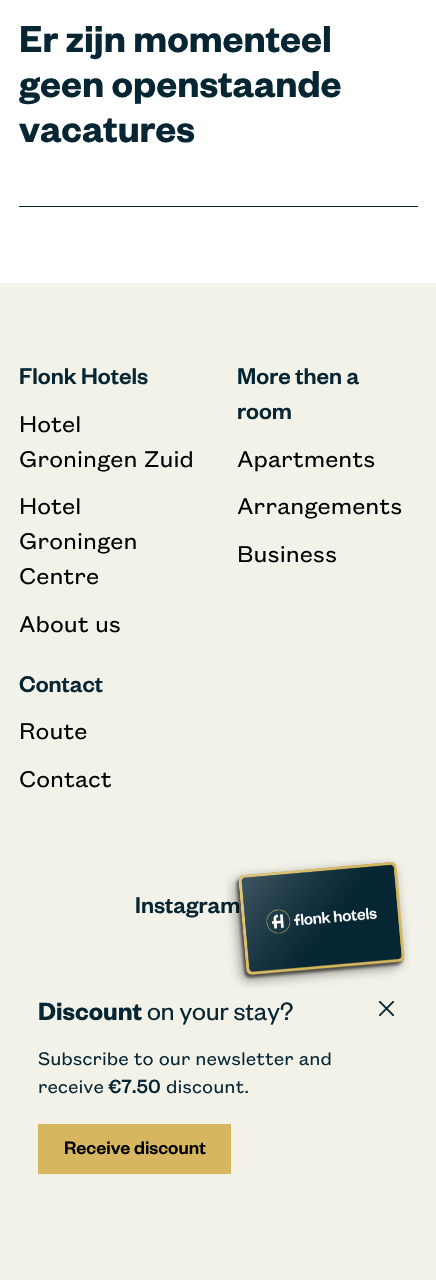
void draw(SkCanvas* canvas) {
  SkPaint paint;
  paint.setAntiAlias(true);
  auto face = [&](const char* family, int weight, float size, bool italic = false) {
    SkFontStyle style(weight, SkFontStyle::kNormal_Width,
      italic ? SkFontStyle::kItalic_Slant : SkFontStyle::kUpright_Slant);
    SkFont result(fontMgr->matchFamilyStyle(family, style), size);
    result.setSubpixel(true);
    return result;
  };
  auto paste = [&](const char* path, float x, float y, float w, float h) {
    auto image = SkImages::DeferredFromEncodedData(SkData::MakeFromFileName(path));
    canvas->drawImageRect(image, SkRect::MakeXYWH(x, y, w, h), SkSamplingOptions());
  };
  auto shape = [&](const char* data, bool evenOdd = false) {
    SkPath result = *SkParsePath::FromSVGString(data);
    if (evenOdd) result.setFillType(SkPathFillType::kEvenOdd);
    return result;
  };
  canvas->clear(0xffffffff);
  {
    const struct { float x, y, w, h; SkColor color; } items[] = {
      {19, 206, 399, 1, 0xff062634},
      {0, 283, 436, 997, 0xfff3f2e9},
      {38, 1124, 193, 50, 0xffd6b75f},
    };
    for (auto [x, y, w, h, color] : items) {
      paint.setColor(color);
      canvas->drawRect(SkRect::MakeXYWH(x, y, w, h), paint);
    }
  }
  canvas->save();
  canvas->clipRect(SkRect::MakeXYWH(379, 1001, 15, 15));
  paint.setStroke(true);
  paint.setStrokeWidth(1.9f);
  paint.setStrokeCap(SkPaint::kRound_Cap);
  paint.setStrokeJoin(SkPaint::kRound_Join);
  paint.setColor(0xff062634);
  canvas->drawPath(shape("M379 1001L394 1016M379 1016L394 1001"), paint);
  canvas->restore();
  auto f0 = face("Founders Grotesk", 600, 41.25f);
  paint.setStroke(false);
  {
    const struct { const char* s; float x, y; } items[] = {
      {"Er zijn momenteel", 19, 52},
      {"geen openstaande", 19, 97},
      {"vacatures", 19, 142},
    };
    for (auto [s, x, y] : items) {
      canvas->drawString(s, x, y, f0, paint);
    }
  }
  auto f1 = face("Founders Grotesk", 500, 25);
  canvas->drawString("Flonk Hotels", 19, 384, f1, paint);
  auto f2 = face("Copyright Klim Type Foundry", 400, 25);
  paint.setColor(0xff000000);
  {
    const struct { const char* s; float x, y; } items[] = {
      {"Hotel", 19, 432},
      {"Groningen Zuid", 19, 467},
      {"Hotel", 19, 514},
      {"Groningen", 19, 549},
      {"Centre", 19, 584},
      {"About us", 19, 632},
    };
    for (auto [s, x, y] : items) {
      canvas->drawString(s, x, y, f2, paint);
    }
  }
  paint.setColor(0xff062634);
  canvas->drawString("More then a", 237, 384, f1, paint);
  canvas->drawString("room", 237, 419, f1, paint);
  paint.setColor(0xff000000);
  {
    const struct { const char* s; float x, y; } items[] = {
      {"Apartments", 237, 467},
      {"Arrangements", 237, 514},
      {"Business", 237, 562},
    };
    for (auto [s, x, y] : items) {
      canvas->drawString(s, x, y, f2, paint);
    }
  }
  paint.setColor(0xff062634);
  canvas->drawString("Contact", 19, 692, f1, paint);
  paint.setColor(0xff000000);
  canvas->drawString("Route", 19, 739, f2, paint);
  canvas->drawString("Contact", 19, 787, f2, paint);
  paint.setColor(0xff062634);
  canvas->drawString("Instagram", 135, 913, f1, paint);
  paste("img/1.png", 226, 858, 184, 130);
  auto f3 = face("Founders Grotesk", 600, 27.5f);
  canvas->drawString("Discount", 38, 1020, f3, paint);
  auto f4 = face("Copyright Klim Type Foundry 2", 400, 27.5f);
  canvas->drawString("on your stay?", 147, 1020, f4, paint);
  auto f5 = face("Copyright Klim Type Foundry", 400, 20);
  canvas->drawString("Subscribe to our newsletter and", 38, 1065, f5, paint);
  canvas->drawString("receive", 38, 1093, f5, paint);
  auto f6 = face("Copyright Klim Type Foundry", 700, 20);
  canvas->drawString("€7.50", 108, 1093, f6, paint);
  canvas->drawString("discount.", 166, 1093, f5, paint);
  auto f7 = face("Founders Grotesk", 500, 20);
  paint.setColor(0xff000000);
  canvas->drawString("Receive discount", 64, 1154, f7, paint);
}
